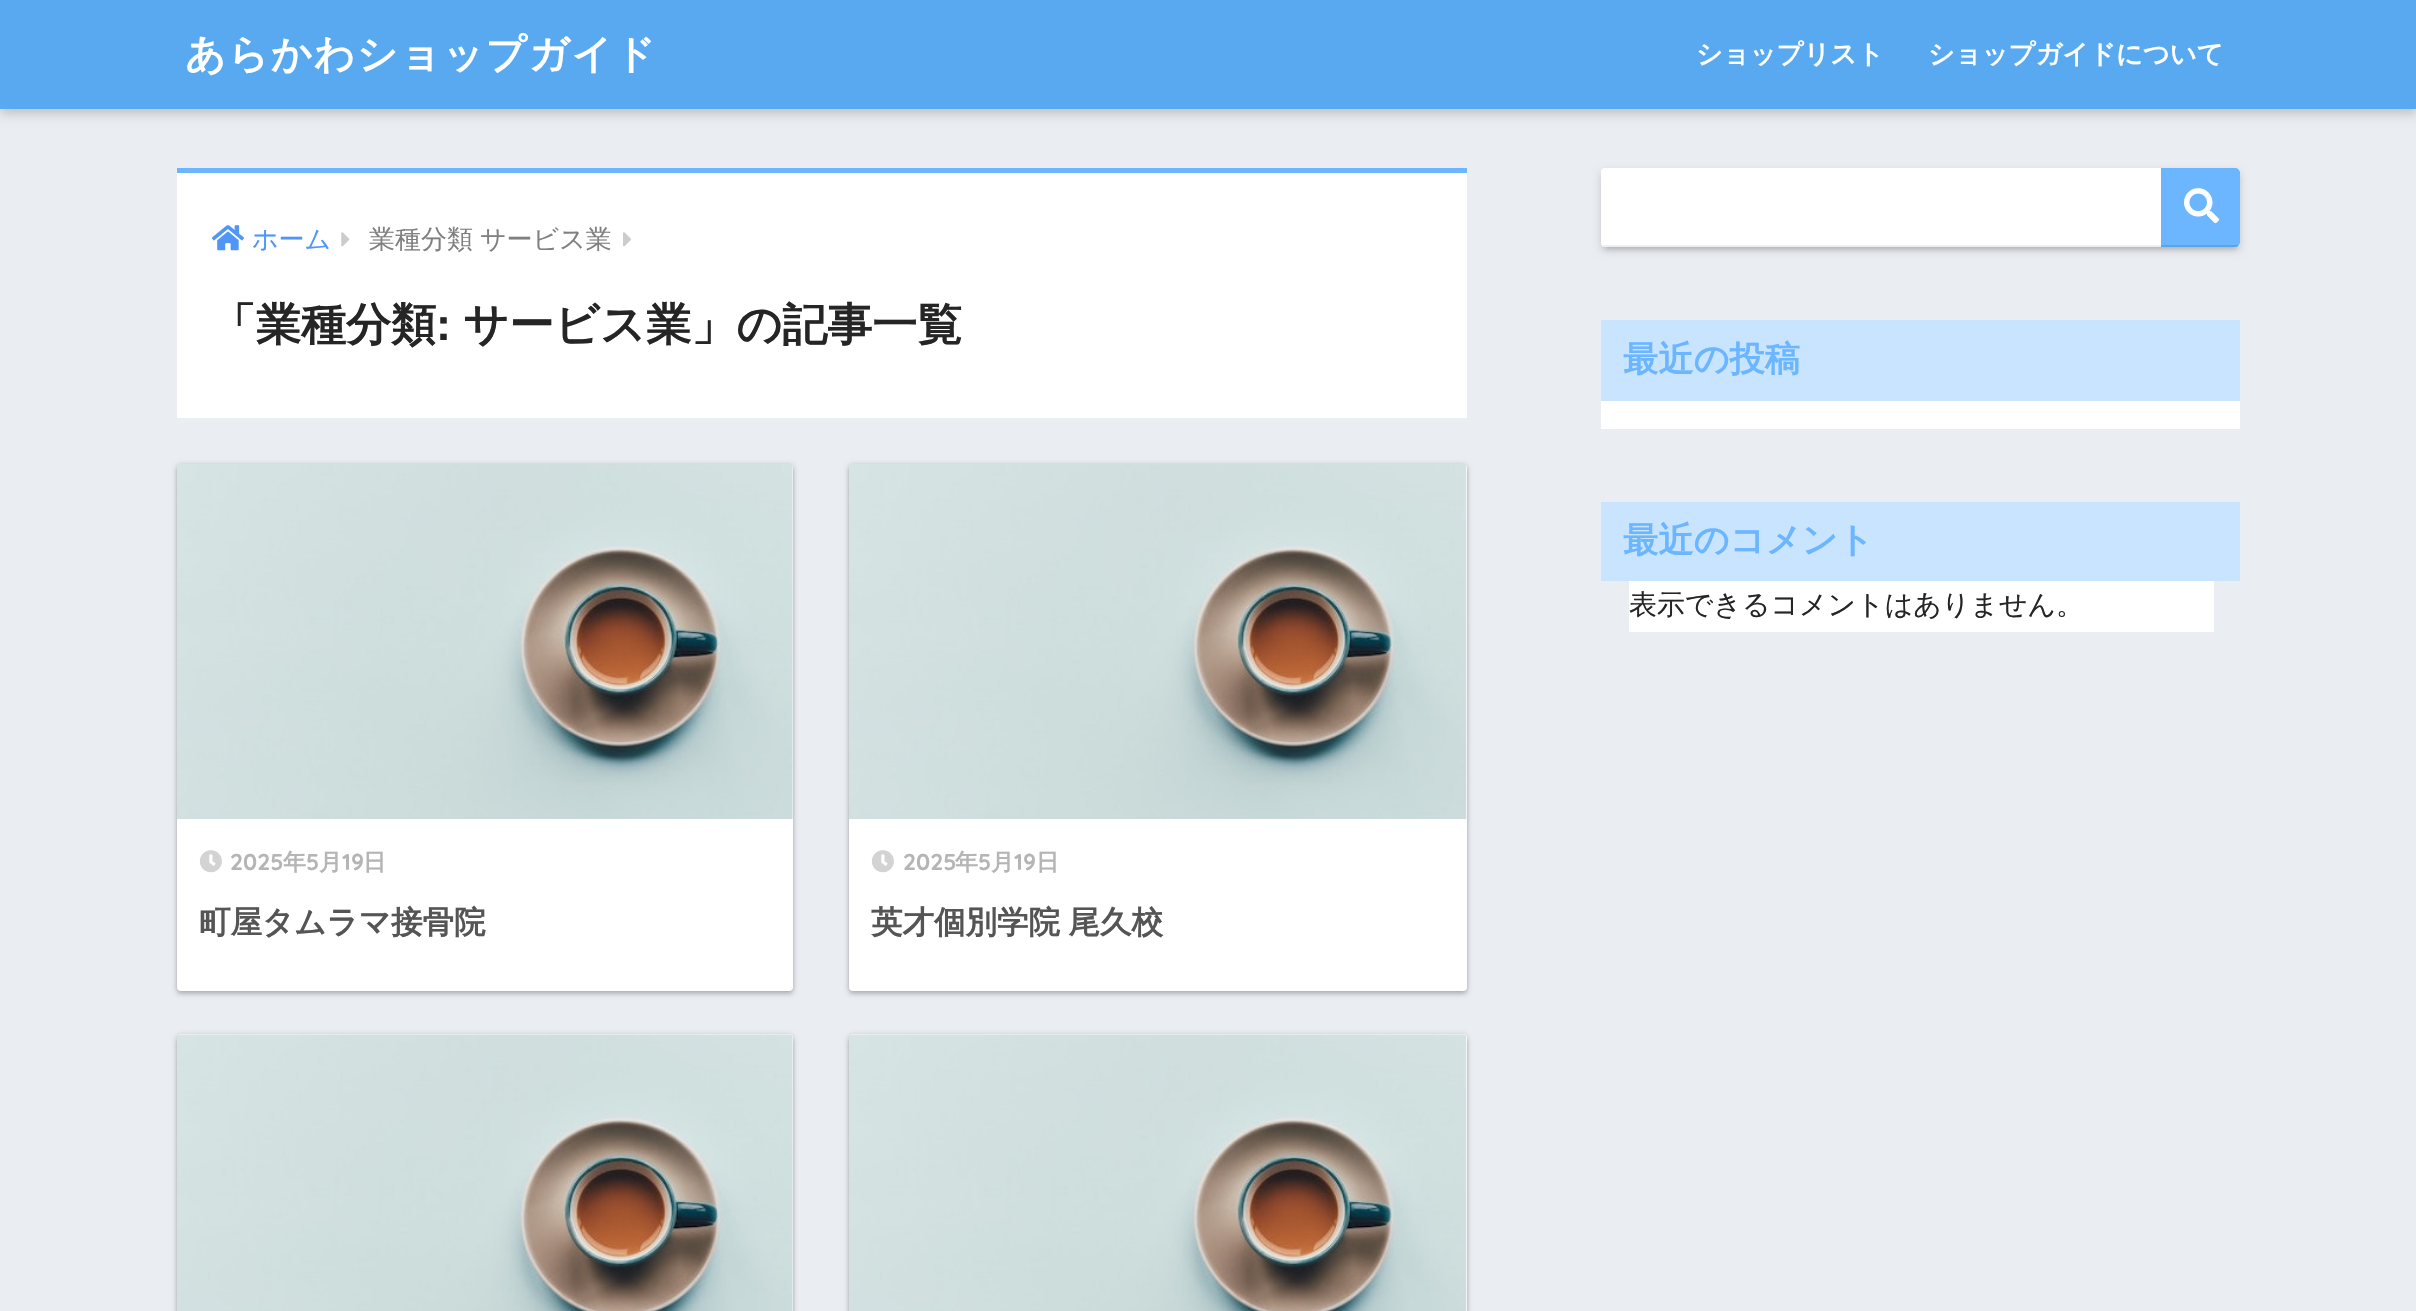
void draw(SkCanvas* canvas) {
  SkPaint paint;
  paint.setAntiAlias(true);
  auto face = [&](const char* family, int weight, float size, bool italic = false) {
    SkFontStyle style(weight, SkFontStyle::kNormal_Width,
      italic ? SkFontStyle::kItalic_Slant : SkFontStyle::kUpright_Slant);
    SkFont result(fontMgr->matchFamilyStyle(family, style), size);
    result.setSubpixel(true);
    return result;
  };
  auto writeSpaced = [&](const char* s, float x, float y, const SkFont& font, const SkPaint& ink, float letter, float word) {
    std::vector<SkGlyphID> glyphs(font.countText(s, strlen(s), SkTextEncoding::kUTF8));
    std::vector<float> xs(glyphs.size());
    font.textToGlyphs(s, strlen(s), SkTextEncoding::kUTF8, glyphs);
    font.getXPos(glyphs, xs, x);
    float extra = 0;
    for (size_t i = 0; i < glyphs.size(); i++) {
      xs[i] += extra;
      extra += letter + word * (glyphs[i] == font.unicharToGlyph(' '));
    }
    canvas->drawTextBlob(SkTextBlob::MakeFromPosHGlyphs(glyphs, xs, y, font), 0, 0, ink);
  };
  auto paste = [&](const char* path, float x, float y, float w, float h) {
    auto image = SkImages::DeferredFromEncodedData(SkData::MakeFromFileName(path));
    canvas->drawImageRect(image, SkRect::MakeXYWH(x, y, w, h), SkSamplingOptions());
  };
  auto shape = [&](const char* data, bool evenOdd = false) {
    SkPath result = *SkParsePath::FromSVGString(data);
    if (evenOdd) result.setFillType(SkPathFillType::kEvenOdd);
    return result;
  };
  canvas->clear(0xffeaedf2);
  paint.setColor(0x2e000000);
  paint.setMaskFilter(SkMaskFilter::MakeBlur(kNormal_SkBlurStyle, 5));
  canvas->drawRect(SkRect::MakeXYWH(0, 5, 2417, 109), paint);
  paint.setMaskFilter(nullptr);
  {
    const struct { float x, y, w, h; SkColor color; } items[] = {
      {0, 0, 2416, 109, 0xff58a9ef},
      {177, 173, 1290, 245, 0xffffffff},
      {177, 168, 1290, 5, 0xff6bb6ff},
    };
    for (auto [x, y, w, h, color] : items) {
      paint.setColor(color);
      canvas->drawRect(SkRect::MakeXYWH(x, y, w, h), paint);
    }
  }
  paste("img/1.png", 211, 225, 33, 26);
  paste("img/2.png", 341, 232, 9, 15);
  paste("img/3.png", 623, 232, 8, 15);
  paint.setColor(0x38000000);
  paint.setMaskFilter(SkMaskFilter::MakeBlur(kNormal_SkBlurStyle, 2.5f));
  canvas->drawRoundRect(SkRect::MakeXYWH(177, 467, 616, 527), 4, 4, paint);
  paint.setMaskFilter(nullptr);
  paint.setColor(0x1f000000);
  paint.setMaskFilter(SkMaskFilter::MakeBlur(kNormal_SkBlurStyle, 2.5f));
  canvas->drawRoundRect(SkRect::MakeXYWH(177, 464, 616, 527), 4, 4, paint);
  paint.setMaskFilter(nullptr);
  paint.setColor(0xffffffff);
  canvas->drawRoundRect(SkRect::MakeXYWH(177, 464, 616, 527), 4, 4, paint);
  paste("img/4.png", 177, 464, 616, 355);
  paste("img/5.png", 199, 850, 23, 23);
  paint.setColor(0x38000000);
  paint.setMaskFilter(SkMaskFilter::MakeBlur(kNormal_SkBlurStyle, 2.5f));
  canvas->drawRoundRect(SkRect::MakeXYWH(849, 467, 618, 527), 4, 4, paint);
  paint.setMaskFilter(nullptr);
  paint.setColor(0x1f000000);
  paint.setMaskFilter(SkMaskFilter::MakeBlur(kNormal_SkBlurStyle, 2.5f));
  canvas->drawRoundRect(SkRect::MakeXYWH(849, 464, 618, 527), 4, 4, paint);
  paint.setMaskFilter(nullptr);
  paint.setColor(0xffffffff);
  canvas->drawRoundRect(SkRect::MakeXYWH(849, 464, 618, 527), 4, 4, paint);
  paste("img/6.png", 849, 464, 618, 355);
  paste("img/5.png", 871, 850, 23, 23);
  paint.setColor(0x38000000);
  paint.setMaskFilter(SkMaskFilter::MakeBlur(kNormal_SkBlurStyle, 2.5f));
  canvas->drawRoundRect(SkRect::MakeXYWH(177, 1038, 616, 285), 4, 4, paint);
  paint.setMaskFilter(nullptr);
  paint.setColor(0x1f000000);
  paint.setMaskFilter(SkMaskFilter::MakeBlur(kNormal_SkBlurStyle, 2.5f));
  canvas->drawRoundRect(SkRect::MakeXYWH(177, 1034, 616, 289), 4, 4, paint);
  paint.setMaskFilter(nullptr);
  paint.setColor(0xffffffff);
  canvas->drawRoundRect(SkRect::MakeXYWH(177, 1034, 616, 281), 4, 4, paint);
  paste("img/7.png", 177, 1034, 616, 277);
  paint.setColor(0x38000000);
  paint.setMaskFilter(SkMaskFilter::MakeBlur(kNormal_SkBlurStyle, 2.5f));
  canvas->drawRoundRect(SkRect::MakeXYWH(849, 1038, 618, 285), 4, 4, paint);
  paint.setMaskFilter(nullptr);
  paint.setColor(0x1f000000);
  paint.setMaskFilter(SkMaskFilter::MakeBlur(kNormal_SkBlurStyle, 2.5f));
  canvas->drawRoundRect(SkRect::MakeXYWH(849, 1034, 618, 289), 4, 4, paint);
  paint.setMaskFilter(nullptr);
  paint.setColor(0xffffffff);
  canvas->drawRoundRect(SkRect::MakeXYWH(849, 1034, 618, 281), 4, 4, paint);
  paste("img/8.png", 849, 1034, 618, 277);
  paint.setColor(0x26000000);
  paint.setMaskFilter(SkMaskFilter::MakeBlur(kNormal_SkBlurStyle, 2.5f));
  canvas->drawRect(SkRect::MakeXYWH(1605, 177, 632, 72), paint);
  paint.setMaskFilter(nullptr);
  paint.setMaskFilter(SkMaskFilter::MakeBlur(kNormal_SkBlurStyle, 4.5f));
  canvas->drawRoundRect(SkRect::MakeXYWH(1601, 172, 639, 78), 4, 4, paint);
  paint.setMaskFilter(nullptr);
  paint.setColor(0xffffffff);
  canvas->drawRoundRect(SkRect::MakeXYWH(1601, 168, 639, 79), 4, 4, paint);
  paint.setColor(0xffefefef);
  canvas->drawRect(SkRect::MakeXYWH(1603, 245, 635, 2), paint);
  paint.setColor(0xff6bb6ff);
  canvas->drawPath(shape("M2161 168H2235C2238 168 2240 170 2240 173V242C2240 245 2238 247 2235 247H2161Z"), paint);
  paint.setColor(0x1a000000);
  canvas->drawRect(SkRect::MakeXYWH(2161, 245, 77, 2), paint);
  paste("img/9.png", 2184, 188, 35, 36);
  {
    const struct { float x, y, w, h; SkColor color; } items[] = {
      {1601, 320, 639, 81, 0xffc8e4ff},
      {1601, 401, 639, 28, 0xffffffff},
      {1601, 502, 639, 79, 0xffc8e4ff},
      {1629, 581, 585, 51, 0xffffffff},
    };
    for (auto [x, y, w, h, color] : items) {
      paint.setColor(color);
      canvas->drawRect(SkRect::MakeXYWH(x, y, w, h), paint);
    }
  }
  auto f0 = face("WenQuanYi Zen Hei", 700, 40.25f);
  writeSpaced("あらかわショップガイド", 185, 68, f0, paint, 1.75f, 0);
  auto f1 = face("WenQuanYi Zen Hei", 700, 26.25f);
  canvas->drawString("ショップリスト", 1696, 63, f1, paint);
  canvas->drawString("ショップガイドについて", 1928, 63, f1, paint);
  auto f2 = face("WenQuanYi Zen Hei", 500, 26);
  paint.setColor(0xff4f96f6);
  canvas->drawString("ホーム", 252, 248, f2, paint);
  paint.setColor(0xff808080);
  canvas->drawString("業種分類", 369, 248, f2, paint);
  canvas->drawString("サービス業", 480, 248, f2, paint);
  auto f3 = face("WenQuanYi Zen Hei", 700, 45);
  paint.setColor(0xff252525);
  canvas->drawString("「業種分類", 211, 340, f3, paint);
  auto f4 = face("Liberation Sans", 700, 45);
  canvas->drawString(":", 436, 340, f4, paint);
  canvas->drawString("サービス業」の記事一覧", 463, 340, f3, paint);
  auto f5 = face("Quicksand", 700, 23);
  paint.setColor(0xffb5b5b5);
  canvas->drawString("2025", 230, 870, f5, paint);
  auto f6 = face("WenQuanYi Zen Hei", 700, 23);
  canvas->drawString("年", 283, 870, f6, paint);
  canvas->drawString("5", 306, 870, f5, paint);
  canvas->drawString("月", 319, 870, f6, paint);
  canvas->drawString("19", 342, 870, f5, paint);
  canvas->drawString("日", 363, 870, f6, paint);
  auto f7 = face("WenQuanYi Zen Hei", 700, 31.5f);
  paint.setColor(0xff555555);
  canvas->drawString("町屋タムラマ接骨院", 199, 933, f7, paint);
  paint.setColor(0xffb5b5b5);
  canvas->drawString("2025", 903, 870, f5, paint);
  canvas->drawString("年", 955, 870, f6, paint);
  canvas->drawString("5", 978, 870, f5, paint);
  canvas->drawString("月", 991, 870, f6, paint);
  canvas->drawString("19", 1014, 870, f5, paint);
  canvas->drawString("日", 1036, 870, f6, paint);
  paint.setColor(0xff555555);
  writeSpaced("英才個別学院 尾久校", 871, 933, f7, paint, 0, -1);
  auto f8 = face("WenQuanYi Zen Hei", 700, 35.25f);
  paint.setColor(0xff6bb6ff);
  canvas->drawString("最近の投稿", 1623, 371, f8, paint);
  canvas->drawString("最近のコメント", 1623, 552, f8, paint);
  auto f9 = face("WenQuanYi Zen Hei", 500, 27.9f);
  paint.setColor(0xff252525);
  canvas->drawString("表示できるコメントはありません。", 1629, 614, f9, paint);
}
